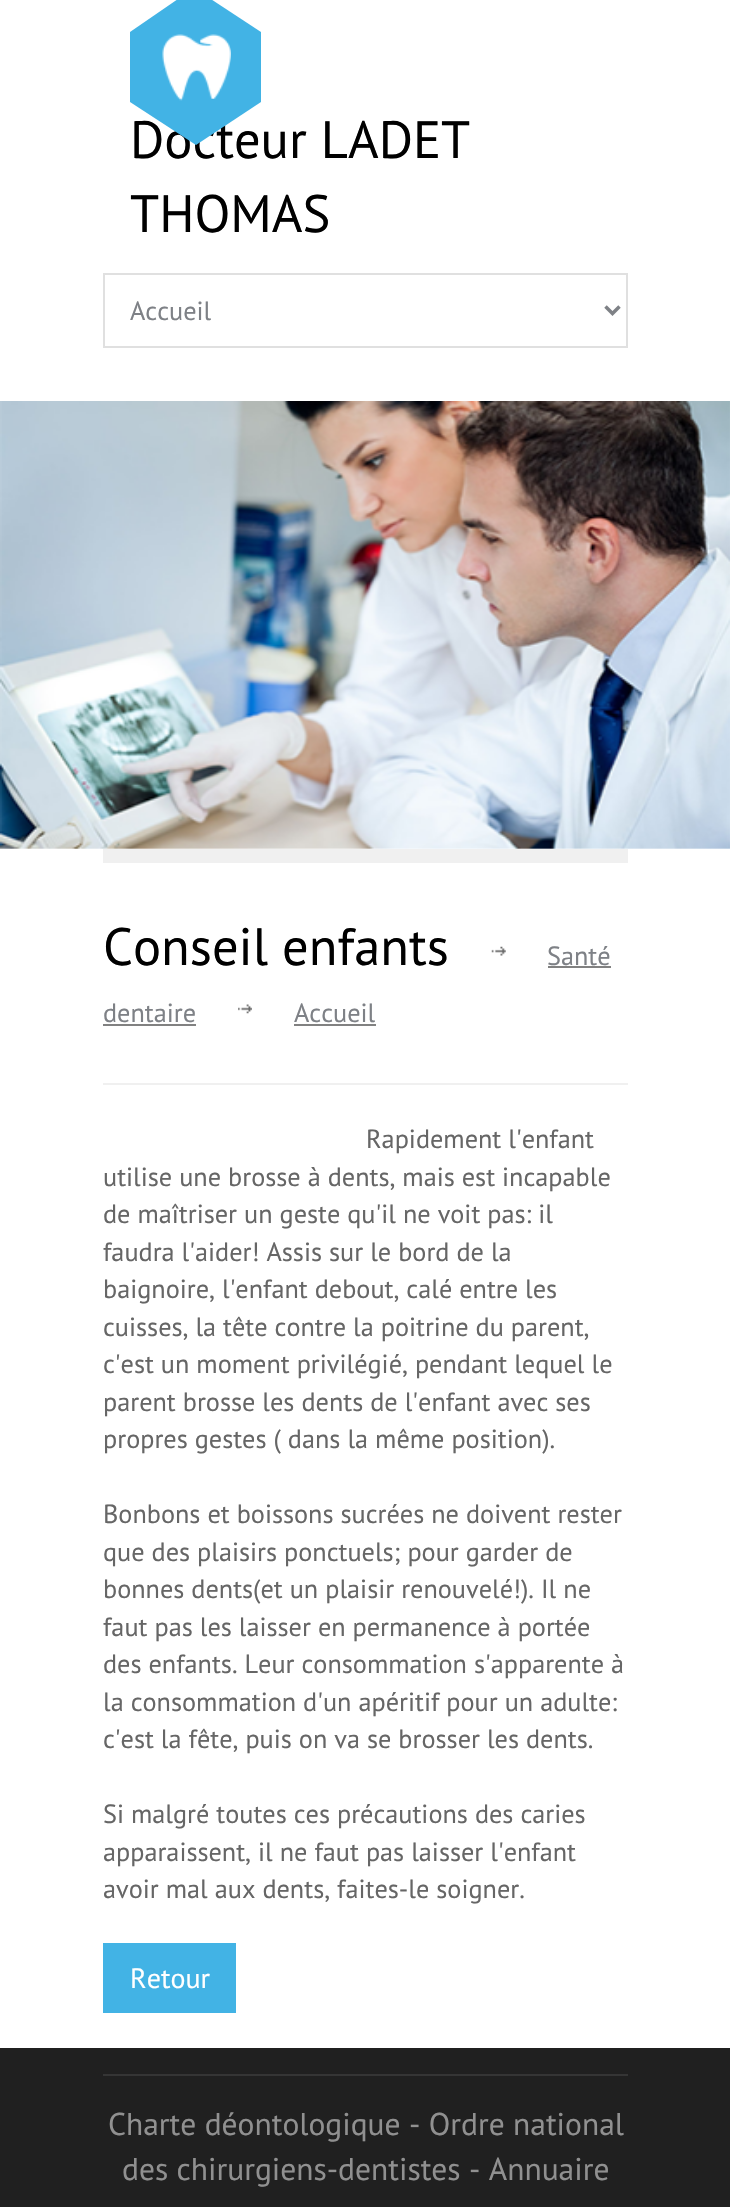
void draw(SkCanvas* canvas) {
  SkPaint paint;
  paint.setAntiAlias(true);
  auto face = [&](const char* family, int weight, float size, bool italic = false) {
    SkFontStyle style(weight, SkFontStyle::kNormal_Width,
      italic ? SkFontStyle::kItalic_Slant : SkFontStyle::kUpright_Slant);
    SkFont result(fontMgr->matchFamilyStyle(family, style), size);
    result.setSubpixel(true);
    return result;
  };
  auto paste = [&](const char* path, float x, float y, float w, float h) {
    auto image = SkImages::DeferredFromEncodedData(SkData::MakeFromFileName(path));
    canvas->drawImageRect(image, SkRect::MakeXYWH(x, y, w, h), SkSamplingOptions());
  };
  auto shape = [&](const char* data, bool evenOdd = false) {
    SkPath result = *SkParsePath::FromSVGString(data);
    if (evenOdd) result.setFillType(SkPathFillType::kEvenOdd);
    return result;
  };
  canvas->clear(0xffffffff);
  paint.setColor(0xff42b3e5);
  canvas->drawRect(SkRect::MakeXYWH(130, 32, 131, 70), paint);
  canvas->drawPath(shape("M261 32H130L194-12Z"), paint);
  paste("img/1.png", 162, 34, 69, 67);
  paint.setStroke(true);
  paint.setStrokeWidth(2);
  paint.setColor(0xffe0e0e0);
  canvas->drawRect(SkRect::MakeXYWH(104, 274, 523, 73), paint);
  paint.setStrokeWidth(3.5f);
  paint.setColor(0xff7e8186);
  canvas->drawPath(shape("M605.5 306.5L612.5 313.5L619.5 306.5"), paint);
  paste("img/2.png", 0, 401, 730, 448);
  paint.setStroke(false);
  paint.setColor(0xfff0f0f0);
  canvas->drawRect(SkRect::MakeXYWH(103, 849, 525, 14), paint);
  paste("img/3.png", 491, 946, 15, 10);
  paint.setColor(0xff818181);
  canvas->drawRect(SkRect::MakeXYWH(548, 966, 63, 2), paint);
  canvas->drawRect(SkRect::MakeXYWH(103, 1024, 93, 2), paint);
  paste("img/4.png", 238, 1004, 14, 10);
  {
    const struct { float x, y, w, h; SkColor color; } items[] = {
      {294, 1024, 82, 2, 0xff818181},
      {103, 1083, 525, 2, 0xfff0f0f0},
      {103, 1943, 133, 70, 0xff42b3e5},
      {0, 2048, 730, 159, 0xff202020},
      {103, 2074, 525, 2, 0xff353535},
    };
    for (auto [x, y, w, h, color] : items) {
      paint.setColor(color);
      canvas->drawRect(SkRect::MakeXYWH(x, y, w, h), paint);
    }
  }
  auto f0 = face("PT Sans", 400, 52.5f);
  paint.setColor(0xff000000);
  canvas->drawString("Docteur LADET", 130, 158, f0, paint);
  paint.setColor(0xff42b3e5);
  canvas->drawPath(shape("M130 102H261L196 145Z"), paint);
  paint.setColor(0xff000000);
  canvas->drawString("THOMAS", 130, 232, f0, paint);
  auto f1 = face("PT Sans", 400, 26.25f);
  paint.setColor(0xff7e8186);
  canvas->drawString("Accueil", 130, 320, f1, paint);
  paint.setColor(0xff000000);
  canvas->drawString("Conseil enfants", 103, 965, f0, paint);
  paint.setColor(0xff7e8186);
  {
    const struct { const char* s; float x, y; } items[] = {
      {"Santé", 547, 965},
      {"dentaire", 103, 1022},
      {"Accueil", 294, 1022},
    };
    for (auto [s, x, y] : items) {
      canvas->drawString(s, x, y, f1, paint);
    }
  }
  paint.setColor(0xff666666);
  {
    const struct { const char* s; float x, y; } items[] = {
      {"Rapidement l'enfant", 366, 1148},
      {"utilise une brosse à dents, mais est incapable", 103, 1186},
      {"de maîtriser un geste qu'il ne voit pas: il", 103, 1223},
      {"faudra l'aider! Assis sur le bord de la", 103, 1261},
      {"baignoire, l'enfant debout, calé entre les", 103, 1298},
      {"cuisses, la tête contre la poitrine du parent,", 103, 1336},
      {"c'est un moment privilégié, pendant lequel le", 103, 1373},
      {"parent brosse les dents de l'enfant avec ses", 103, 1411},
      {"propres gestes ( dans la même position).", 103, 1448},
      {"Bonbons et boissons sucrées ne doivent rester", 103, 1523},
      {"que des plaisirs ponctuels; pour garder de", 103, 1561},
      {"bonnes dents(et un plaisir renouvelé!). Il ne", 103, 1598},
      {"faut pas les laisser en permanence à portée", 103, 1636},
      {"des enfants. Leur consommation s'apparente à", 103, 1673},
      {"la consommation d'un apéritif pour un adulte:", 103, 1711},
      {"c'est la fête, puis on va se brosser les dents.", 103, 1748},
      {"Si malgré toutes ces précautions des caries", 103, 1823},
      {"apparaissent, il ne faut pas laisser l'enfant", 103, 1861},
      {"avoir mal aux dents, faites-le soigner.", 103, 1898},
    };
    for (auto [s, x, y] : items) {
      canvas->drawString(s, x, y, f1, paint);
    }
  }
  auto f2 = face("PT Sans", 400, 28);
  paint.setColor(0xffffffff);
  canvas->drawString("Retour", 130, 1988, f2, paint);
  auto f3 = face("PT Sans", 400, 31.5f);
  paint.setColor(0xff909090);
  canvas->drawString("Charte déontologique - Ordre national", 108, 2135, f3, paint);
  canvas->drawString("des chirurgiens-dentistes - Annuaire", 122, 2180, f3, paint);
}
